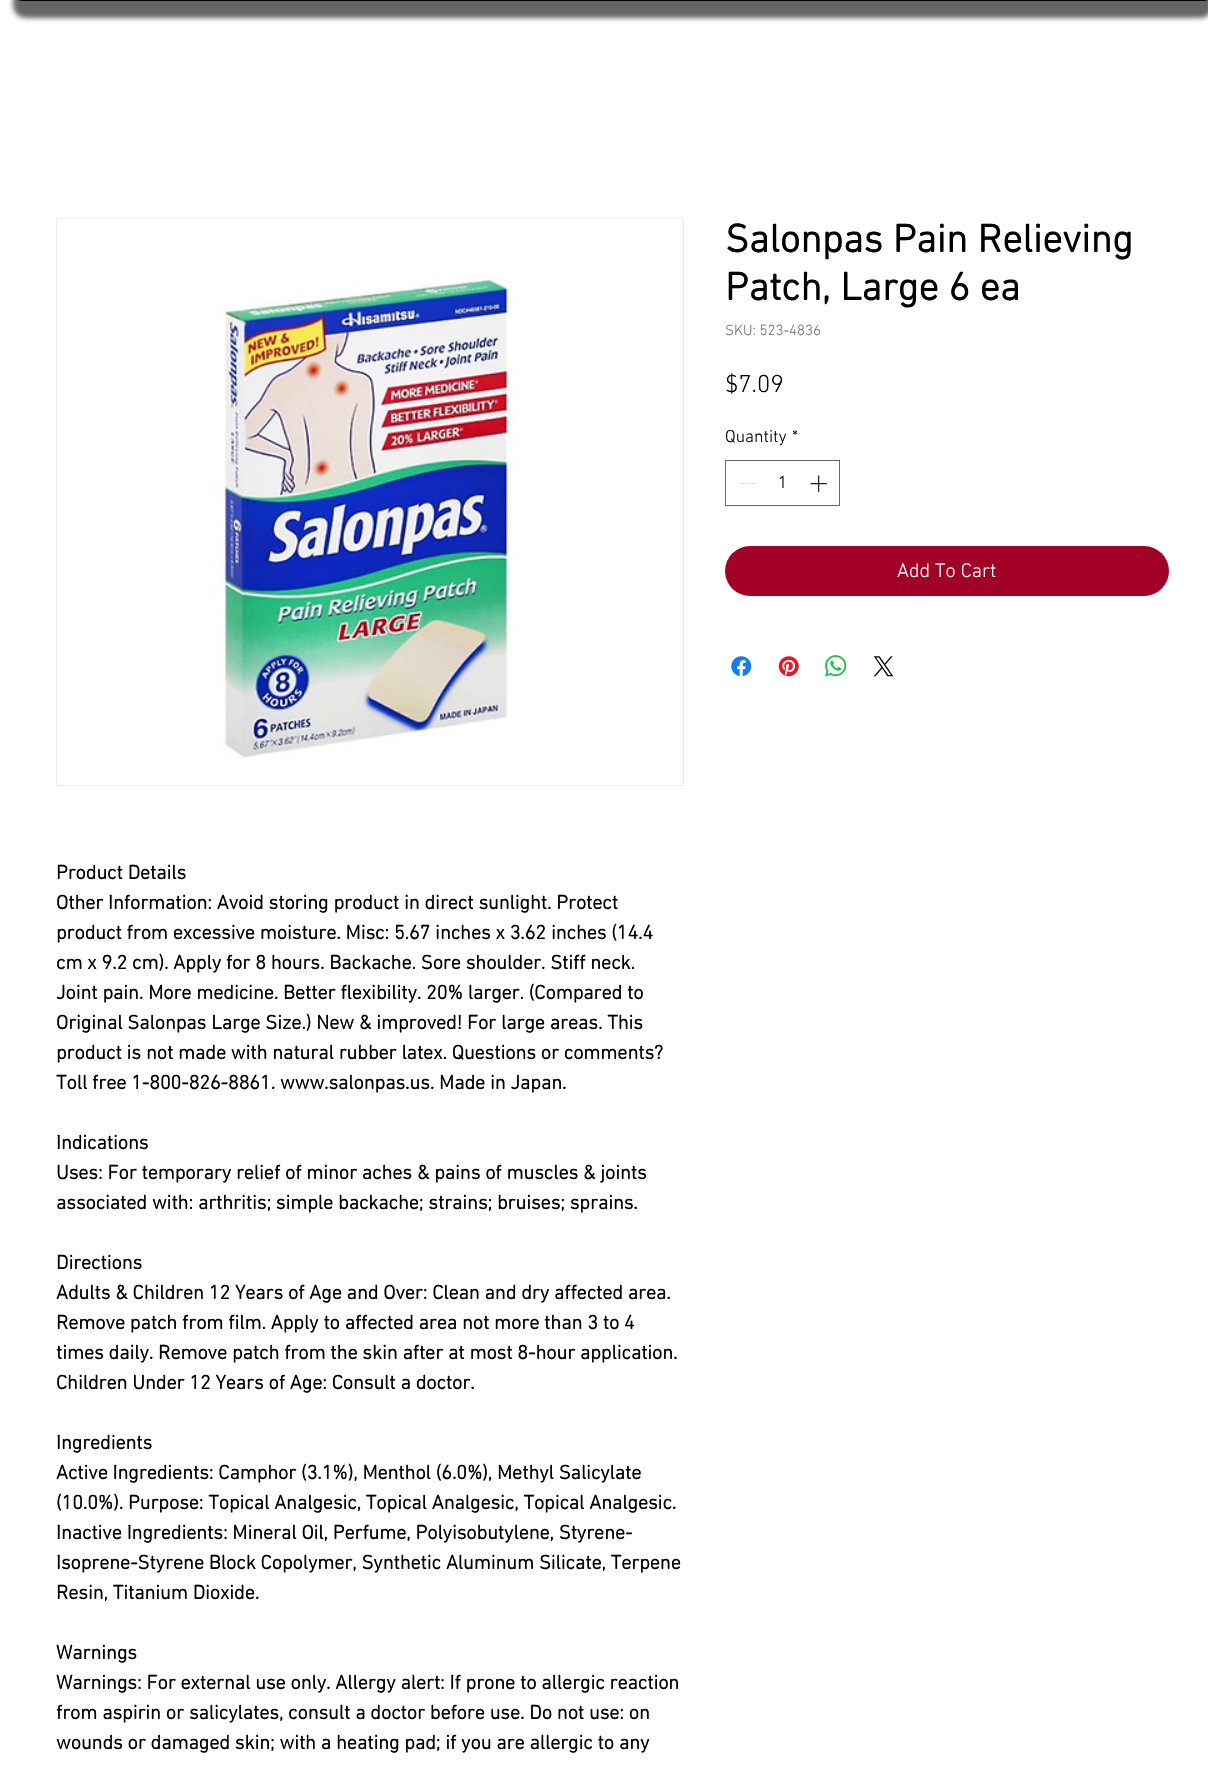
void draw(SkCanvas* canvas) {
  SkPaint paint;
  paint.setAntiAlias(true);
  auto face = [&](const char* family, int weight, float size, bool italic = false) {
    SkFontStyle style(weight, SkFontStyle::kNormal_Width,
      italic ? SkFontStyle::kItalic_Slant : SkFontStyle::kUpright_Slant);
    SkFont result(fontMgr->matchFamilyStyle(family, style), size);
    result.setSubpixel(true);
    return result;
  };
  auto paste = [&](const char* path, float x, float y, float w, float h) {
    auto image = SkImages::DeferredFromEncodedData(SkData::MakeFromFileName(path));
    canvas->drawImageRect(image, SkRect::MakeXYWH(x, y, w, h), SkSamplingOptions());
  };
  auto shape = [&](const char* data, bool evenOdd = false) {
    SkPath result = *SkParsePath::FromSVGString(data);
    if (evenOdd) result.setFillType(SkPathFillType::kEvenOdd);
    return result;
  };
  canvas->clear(0xffffffff);
  canvas->save();
  canvas->clipPath(shape("M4 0H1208V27H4ZM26-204H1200C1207-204 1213-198 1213-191V-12C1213-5 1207 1 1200 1H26C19 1 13-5 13-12V-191C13-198 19-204 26-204Z", true), true);
  paint.setColor(0x99000000);
  paint.setMaskFilter(SkMaskFilter::MakeBlur(kNormal_SkBlurStyle, 2.5f));
  canvas->drawRoundRect(SkRect::MakeXYWH(13, -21, 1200, 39), 13, 13, paint);
  paint.setMaskFilter(nullptr);
  canvas->restore();
  paint.setStroke(true);
  paint.setStrokeWidth(5);
  paint.setColor(0xff000000);
  canvas->drawRoundRect(SkRect::MakeXYWH(15.5f, -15.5f, 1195, 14), 10.5f, 10.5f, paint);
  paint.setStrokeWidth(1);
  paint.setColor(0xff666666);
  canvas->drawRect(SkRect::MakeXYWH(725.5f, 460.5f, 114, 45), paint);
  paint.setStroke(false);
  paint.setColor(0xffe3e3e3);
  canvas->drawRect(SkRect::MakeXYWH(739, 483, 17, 1), paint);
  paste("img/1.png", 810, 475, 17, 17);
  paint.setColor(0xffa30027);
  canvas->drawRoundRect(SkRect::MakeXYWH(725, 546, 444, 50), 25, 25, paint);
  paste("img/2.png", 731, 656, 21, 21);
  paste("img/3.png", 778, 656, 21, 21);
  paste("img/4.png", 825, 655, 22, 22);
  paste("img/5.png", 873, 656, 21, 21);
  paint.setStroke(true);
  paint.setColor(0xffececec);
  canvas->drawRect(SkRect::MakeXYWH(56.5f, 218.5f, 627, 567), paint);
  paste("img/6.png", 58, 218, 624, 540);
  auto f0 = face("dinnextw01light", 700, 40);
  paint.setStroke(false);
  paint.setColor(0xff000000);
  canvas->drawString("Salonpas Pain Relieving", 725, 252, f0, paint);
  canvas->drawString("Patch, Large 6 ea", 725, 300, f0, paint);
  auto f1 = face("dinnextw01light", 300, 15);
  paint.setColor(0xff727272);
  canvas->drawString("SKU: 523-4836", 725, 335, f1, paint);
  auto f2 = face("dinnextw01light", 300, 25);
  paint.setColor(0xff000000);
  canvas->drawString("$7.09", 725, 392, f2, paint);
  auto f3 = face("dinnextw01light", 300, 17.5f);
  {
    const struct { const char* s; float x, y; } items[] = {
      {"Quantity", 725, 442},
      {"*", 792, 442},
      {"1", 778, 488},
    };
    for (auto [s, x, y] : items) {
      canvas->drawString(s, x, y, f3, paint);
    }
  }
  auto f4 = face("dinnextw01light", 300, 20);
  paint.setColor(0xffffffff);
  canvas->drawString("Add To Cart", 897, 577, f4, paint);
  auto f5 = face("dinnextw01light", 700, 20);
  paint.setColor(0xff000000);
  {
    const struct { const char* s; float x, y; } items[] = {
      {"Product Details", 56, 879},
      {"Other Information: Avoid storing product in direct sunlight. Protect", 56, 909},
      {"product from excessive moisture. Misc: 5.67 inches x 3.62 inches (14.4", 56, 939},
      {"cm x 9.2 cm). Apply for 8 hours. Backache. Sore shoulder. Stiff neck.", 56, 969},
      {"Joint pain. More medicine. Better flexibility. 20% larger. (Compared to", 56, 999},
      {"Original Salonpas Large Size.) New & improved! For large areas. This", 56, 1029},
      {"product is not made with natural rubber latex. Questions or comments?", 56, 1059},
      {"Toll free 1-800-826-8861. www.salonpas.us. Made in Japan.", 56, 1089},
      {"Indications", 56, 1149},
      {"Uses: For temporary relief of minor aches & pains of muscles & joints", 56, 1179},
      {"associated with: arthritis; simple backache; strains; bruises; sprains.", 56, 1209},
      {"Directions", 56, 1269},
      {"Adults & Children 12 Years of Age and Over: Clean and dry affected area.", 56, 1299},
      {"Remove patch from film. Apply to affected area not more than 3 to 4", 56, 1329},
      {"times daily. Remove patch from the skin after at most 8-hour application.", 56, 1359},
      {"Children Under 12 Years of Age: Consult a doctor.", 56, 1389},
      {"Ingredients", 56, 1449},
      {"Active Ingredients: Camphor (3.1%), Menthol (6.0%), Methyl Salicylate", 56, 1479},
      {"(10.0%). Purpose: Topical Analgesic, Topical Analgesic, Topical Analgesic.", 56, 1509},
      {"Inactive Ingredients: Mineral Oil, Perfume, Polyisobutylene, Styrene-", 56, 1539},
      {"Isoprene-Styrene Block Copolymer, Synthetic Aluminum Silicate, Terpene", 56, 1569},
      {"Resin, Titanium Dioxide.", 56, 1599},
      {"Warnings", 56, 1659},
      {"Warnings: For external use only. Allergy alert: If prone to allergic reaction", 56, 1689},
      {"from aspirin or salicylates, consult a doctor before use. Do not use: on", 56, 1719},
      {"wounds or damaged skin; with a heating pad; if you are allergic to any", 56, 1749},
    };
    for (auto [s, x, y] : items) {
      canvas->drawString(s, x, y, f5, paint);
    }
  }
}
